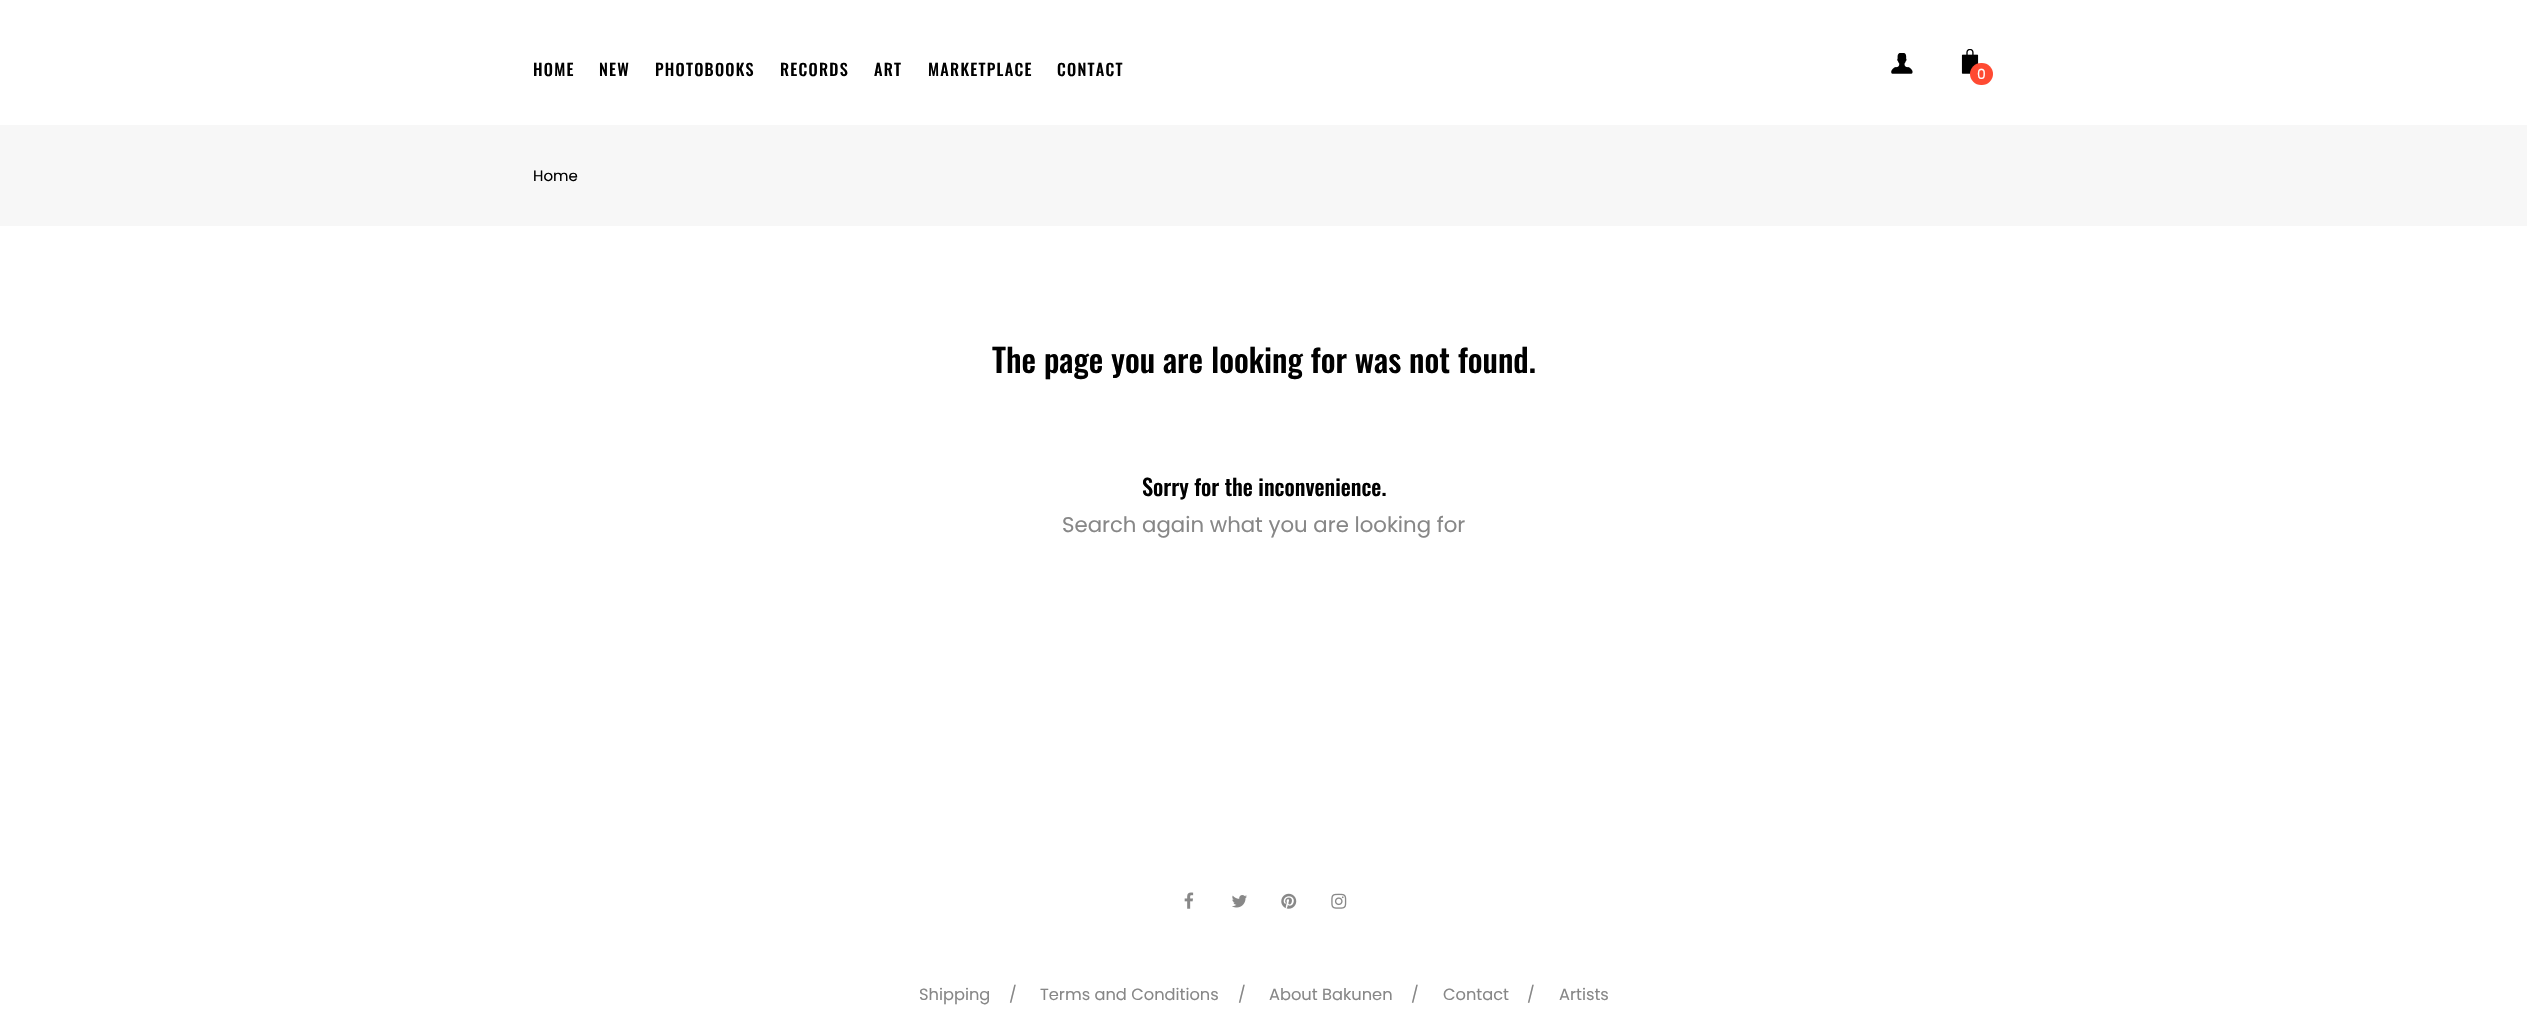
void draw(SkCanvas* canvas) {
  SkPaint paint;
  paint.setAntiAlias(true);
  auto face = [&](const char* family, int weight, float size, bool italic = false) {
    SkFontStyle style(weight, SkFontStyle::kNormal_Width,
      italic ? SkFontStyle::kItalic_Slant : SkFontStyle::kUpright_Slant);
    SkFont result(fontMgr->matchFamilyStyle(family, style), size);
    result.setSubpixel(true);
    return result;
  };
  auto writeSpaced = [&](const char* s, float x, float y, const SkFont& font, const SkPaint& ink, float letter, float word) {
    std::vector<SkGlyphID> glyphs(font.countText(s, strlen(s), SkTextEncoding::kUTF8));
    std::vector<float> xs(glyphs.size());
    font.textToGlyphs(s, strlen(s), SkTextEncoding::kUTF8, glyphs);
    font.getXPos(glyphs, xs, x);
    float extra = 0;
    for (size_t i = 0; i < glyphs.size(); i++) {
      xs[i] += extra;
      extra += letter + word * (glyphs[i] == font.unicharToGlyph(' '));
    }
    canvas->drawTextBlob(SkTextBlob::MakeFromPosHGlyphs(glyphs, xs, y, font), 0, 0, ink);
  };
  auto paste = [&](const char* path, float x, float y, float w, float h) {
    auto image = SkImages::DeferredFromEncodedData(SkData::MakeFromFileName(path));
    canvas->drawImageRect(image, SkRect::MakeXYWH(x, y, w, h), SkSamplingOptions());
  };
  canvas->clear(0xffffffff);
  paste("img/1.png", 1891, 53, 22, 21);
  paste("img/2.png", 1961, 49, 18, 25);
  paint.setColor(0xffff4a32);
  canvas->drawRoundRect(SkRect::MakeXYWH(1970, 63, 23, 22), 11, 11, paint);
  paint.setColor(0xfff7f7f7);
  canvas->drawRect(SkRect::MakeXYWH(0, 125, 2527, 101), paint);
  paste("img/3.png", 1184, 892, 10, 17);
  paste("img/4.png", 1232, 895, 15, 13);
  paste("img/5.png", 1281, 893, 16, 16);
  paste("img/6.png", 1331, 893, 16, 16);
  auto f0 = face("Oswald", 500, 16.25f);
  paint.setColor(0xff000000);
  {
    const struct { const char* s; float x, y; } items[] = {
      {"HOME", 533, 76},
      {"NEW", 599, 76},
      {"PHOTOBOOKS", 655, 76},
      {"RECORDS", 780, 76},
      {"ART", 874, 76},
      {"MARKETPLACE", 928, 76},
      {"CONTACT", 1057, 76},
    };
    for (auto [s, x, y] : items) {
      writeSpaced(s, x, y, f0, paint, 1.25f, 0);
    }
  }
  auto f1 = face("Poppins", 400, 14);
  paint.setColor(0xffffffff);
  canvas->drawString("0", 1977, 79, f1, paint);
  auto f2 = face("Poppins", 400, 15);
  paint.setColor(0xff000000);
  canvas->drawString("Home", 533, 181, f2, paint);
  auto f3 = face("Oswald", 500, 32.5f);
  canvas->drawString("The page you are looking for was not found.", 992, 373, f3, paint);
  auto f4 = face("Oswald", 500, 22.5f);
  canvas->drawString("Sorry for the inconvenience.", 1142, 496, f4, paint);
  auto f5 = face("Poppins", 400, 21.25f);
  paint.setColor(0xff878787);
  canvas->drawString("Search again what you are looking for", 1062, 532, f5, paint);
  auto f6 = face("Poppins", 400, 16.25f);
  {
    const struct { const char* s; float x, y; } items[] = {
      {"Shipping", 919, 1000},
      {"/", 1009, 1000},
      {"Terms and Conditions", 1040, 1000},
      {"/", 1238, 1000},
      {"About Bakunen", 1269, 1000},
      {"/", 1411, 1000},
      {"Contact", 1443, 1000},
      {"/", 1527, 1000},
      {"Artists", 1559, 1000},
    };
    for (auto [s, x, y] : items) {
      canvas->drawString(s, x, y, f6, paint);
    }
  }
}
